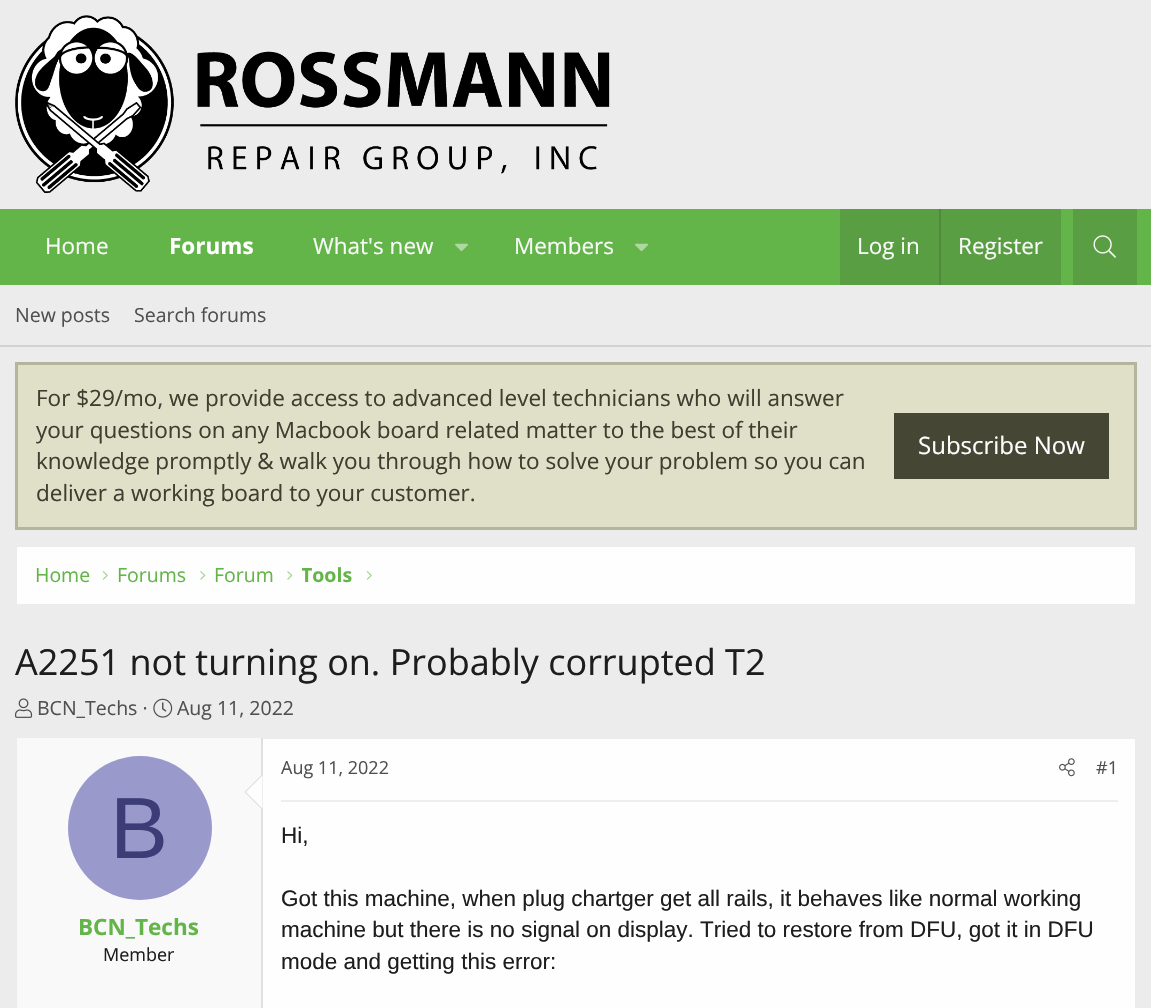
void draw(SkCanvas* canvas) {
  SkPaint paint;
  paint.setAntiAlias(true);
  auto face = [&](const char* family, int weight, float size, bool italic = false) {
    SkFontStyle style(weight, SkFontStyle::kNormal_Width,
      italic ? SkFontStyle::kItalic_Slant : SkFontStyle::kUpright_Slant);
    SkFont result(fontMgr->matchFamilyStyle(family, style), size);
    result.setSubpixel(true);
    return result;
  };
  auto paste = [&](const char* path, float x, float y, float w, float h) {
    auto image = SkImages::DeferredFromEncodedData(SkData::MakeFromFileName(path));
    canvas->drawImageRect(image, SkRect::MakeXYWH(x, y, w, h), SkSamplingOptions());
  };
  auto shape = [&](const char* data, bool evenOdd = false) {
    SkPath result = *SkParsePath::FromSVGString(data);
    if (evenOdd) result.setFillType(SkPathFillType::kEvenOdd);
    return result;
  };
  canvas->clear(0xffececec);
  paste("img/1.png", 15, 15, 595, 178);
  paint.setColor(0xff64b549);
  canvas->drawRect(SkRect::MakeXYWH(0, 209, 1151, 76), paint);
  paste("img/2.png", 455, 243, 13, 9);
  paste("img/2.png", 635, 243, 13, 9);
  {
    const struct { float x, y, w, h; SkColor color; } items[] = {
      {840, 209, 221, 76, 0xff599e42},
      {939, 209, 2, 76, 0xff508b3c},
      {1073, 209, 64, 76, 0xff599e42},
    };
    for (auto [x, y, w, h, color] : items) {
      paint.setColor(color);
      canvas->drawRect(SkRect::MakeXYWH(x, y, w, h), paint);
    }
  }
  paste("img/3.png", 1093, 235, 23, 23);
  paint.setColor(0xffd2d2d2);
  canvas->drawRect(SkRect::MakeXYWH(0, 345, 1151, 2), paint);
  paint.setColor(0xffe0e0c9);
  canvas->drawRect(SkRect::MakeXYWH(16.5f, 363.5f, 1119, 165), paint);
  paint.setStroke(true);
  paint.setStrokeWidth(3);
  paint.setColor(0xffb5b59d);
  canvas->drawRect(SkRect::MakeXYWH(16.5f, 363.5f, 1119, 165), paint);
  paint.setStroke(false);
  paint.setColor(0xff464634);
  canvas->drawRect(SkRect::MakeXYWH(894, 413, 215, 66), paint);
  paint.setColor(0xfffefefe);
  canvas->drawRect(SkRect::MakeXYWH(17, 547, 1118, 57), paint);
  paste("img/4.png", 102, 571, 6, 9);
  paste("img/5.png", 200, 571, 6, 9);
  paste("img/5.png", 287, 571, 6, 9);
  paste("img/4.png", 366, 571, 6, 9);
  paste("img/6.png", 15, 698, 18, 20);
  paste("img/7.png", 153, 698, 20, 20);
  {
    const struct { float x, y, w, h; SkColor color; } items[] = {
      {263, 739, 872, 269, 0xfffefefe},
      {17, 738, 244, 270, 0xfff9f9f9},
      {261, 738, 2, 270, 0xffdfdfdf},
    };
    for (auto [x, y, w, h, color] : items) {
      paint.setColor(color);
      canvas->drawRect(SkRect::MakeXYWH(x, y, w, h), paint);
    }
  }
  canvas->drawPath(shape("M262.5 774V810L244.5 792Z"), paint);
  paint.setColor(0xfffefefe);
  canvas->drawPath(shape("M262.5 775.5V808.5L246 792Z"), paint);
  paint.setColor(0xff9999cc);
  canvas->drawCircle(140, 828, 72, paint);
  paint.setColor(0xffeeeeee);
  canvas->drawRect(SkRect::MakeXYWH(281, 800, 837, 2), paint);
  paste("img/8.png", 1059, 758, 16, 19);
  auto f0 = face("Open Sans", 400, 22.5f);
  paint.setColor(0xfff9f9f9);
  canvas->drawString("Home", 45, 254, f0, paint);
  auto f1 = face("Open Sans", 700, 22.5f);
  paint.setColor(0xffffffff);
  canvas->drawString("Forums", 169, 254, f1, paint);
  paint.setColor(0xfff9f9f9);
  {
    const struct { const char* s; float x, y; } items[] = {
      {"What's new", 313, 254},
      {"Members", 514, 254},
      {"Log in", 857, 254},
      {"Register", 958, 254},
    };
    for (auto [s, x, y] : items) {
      canvas->drawString(s, x, y, f0, paint);
    }
  }
  auto f2 = face("Open Sans", 400, 19.5f);
  paint.setColor(0xff505050);
  canvas->drawString("New posts", 15, 322, f2, paint);
  canvas->drawString("Search forums", 134, 322, f2, paint);
  paint.setColor(0xff3e3e31);
  {
    const struct { const char* s; float x, y; } items[] = {
      {"For $29/mo, we provide access to advanced level technicians who will answer", 36, 406},
      {"your questions on any Macbook board related matter to the best of their", 36, 438},
      {"knowledge promptly & walk you through how to solve your problem so you can", 36, 469},
      {"deliver a working board to your customer.", 36, 501},
    };
    for (auto [s, x, y] : items) {
      canvas->drawString(s, x, y, f0, paint);
    }
  }
  auto f3 = face("Open Sans", 400, 24);
  paint.setColor(0xffffffff);
  canvas->drawString("Subscribe Now", 918, 454, f3, paint);
  paint.setColor(0xff64b549);
  {
    const struct { const char* s; float x, y; } items[] = {
      {"Home", 35, 582},
      {"Forums", 117, 582},
      {"Forum", 214, 582},
    };
    for (auto [s, x, y] : items) {
      canvas->drawString(s, x, y, f2, paint);
    }
  }
  canvas->save();
  canvas->clipRect(SkRect::MakeXYWH(302, 561, 51, 29));
  auto f4 = face("Open Sans", 700, 19.5f);
  canvas->drawString("Tools", 301, 582, f4, paint);
  canvas->restore();
  auto f5 = face("Open Sans", 400, 36);
  paint.setColor(0xff1d1d1d);
  canvas->drawString("A2251 not turning on. Probably corrupted T2", 15, 675, f5, paint);
  paint.setColor(0xff505050);
  canvas->drawString("BCN_Techs ·", 37, 715, f2, paint);
  canvas->drawString("Aug 11, 2022", 177, 715, f2, paint);
  auto f6 = face("Liberation Sans", 400, 87);
  paint.setColor(0xff3c3c77);
  canvas->drawString("B", 110, 858, f6, paint);
  paint.setColor(0xff64b549);
  canvas->drawString("BCN_Techs", 78, 935, f1, paint);
  auto f7 = face("Open Sans", 400, 18);
  paint.setColor(0xff1d1d1d);
  canvas->drawString("Member", 103, 961, f7, paint);
  paint.setColor(0xff505050);
  canvas->drawString("Aug 11, 2022", 281, 774, f7, paint);
  canvas->drawString("#1", 1096, 774, f7, paint);
  auto f8 = face("Liberation Sans", 400, 22.5f);
  paint.setColor(0xff1d1d1d);
  {
    const struct { const char* s; float x, y; } items[] = {
      {"Hi,", 281, 843},
      {"Got this machine, when plug chartger get all rails, it behaves like normal working", 281, 906},
      {"machine but there is no signal on display. Tried to restore from DFU, got it in DFU", 281, 937},
      {"mode and getting this error:", 281, 969},
    };
    for (auto [s, x, y] : items) {
      canvas->drawString(s, x, y, f8, paint);
    }
  }
}
